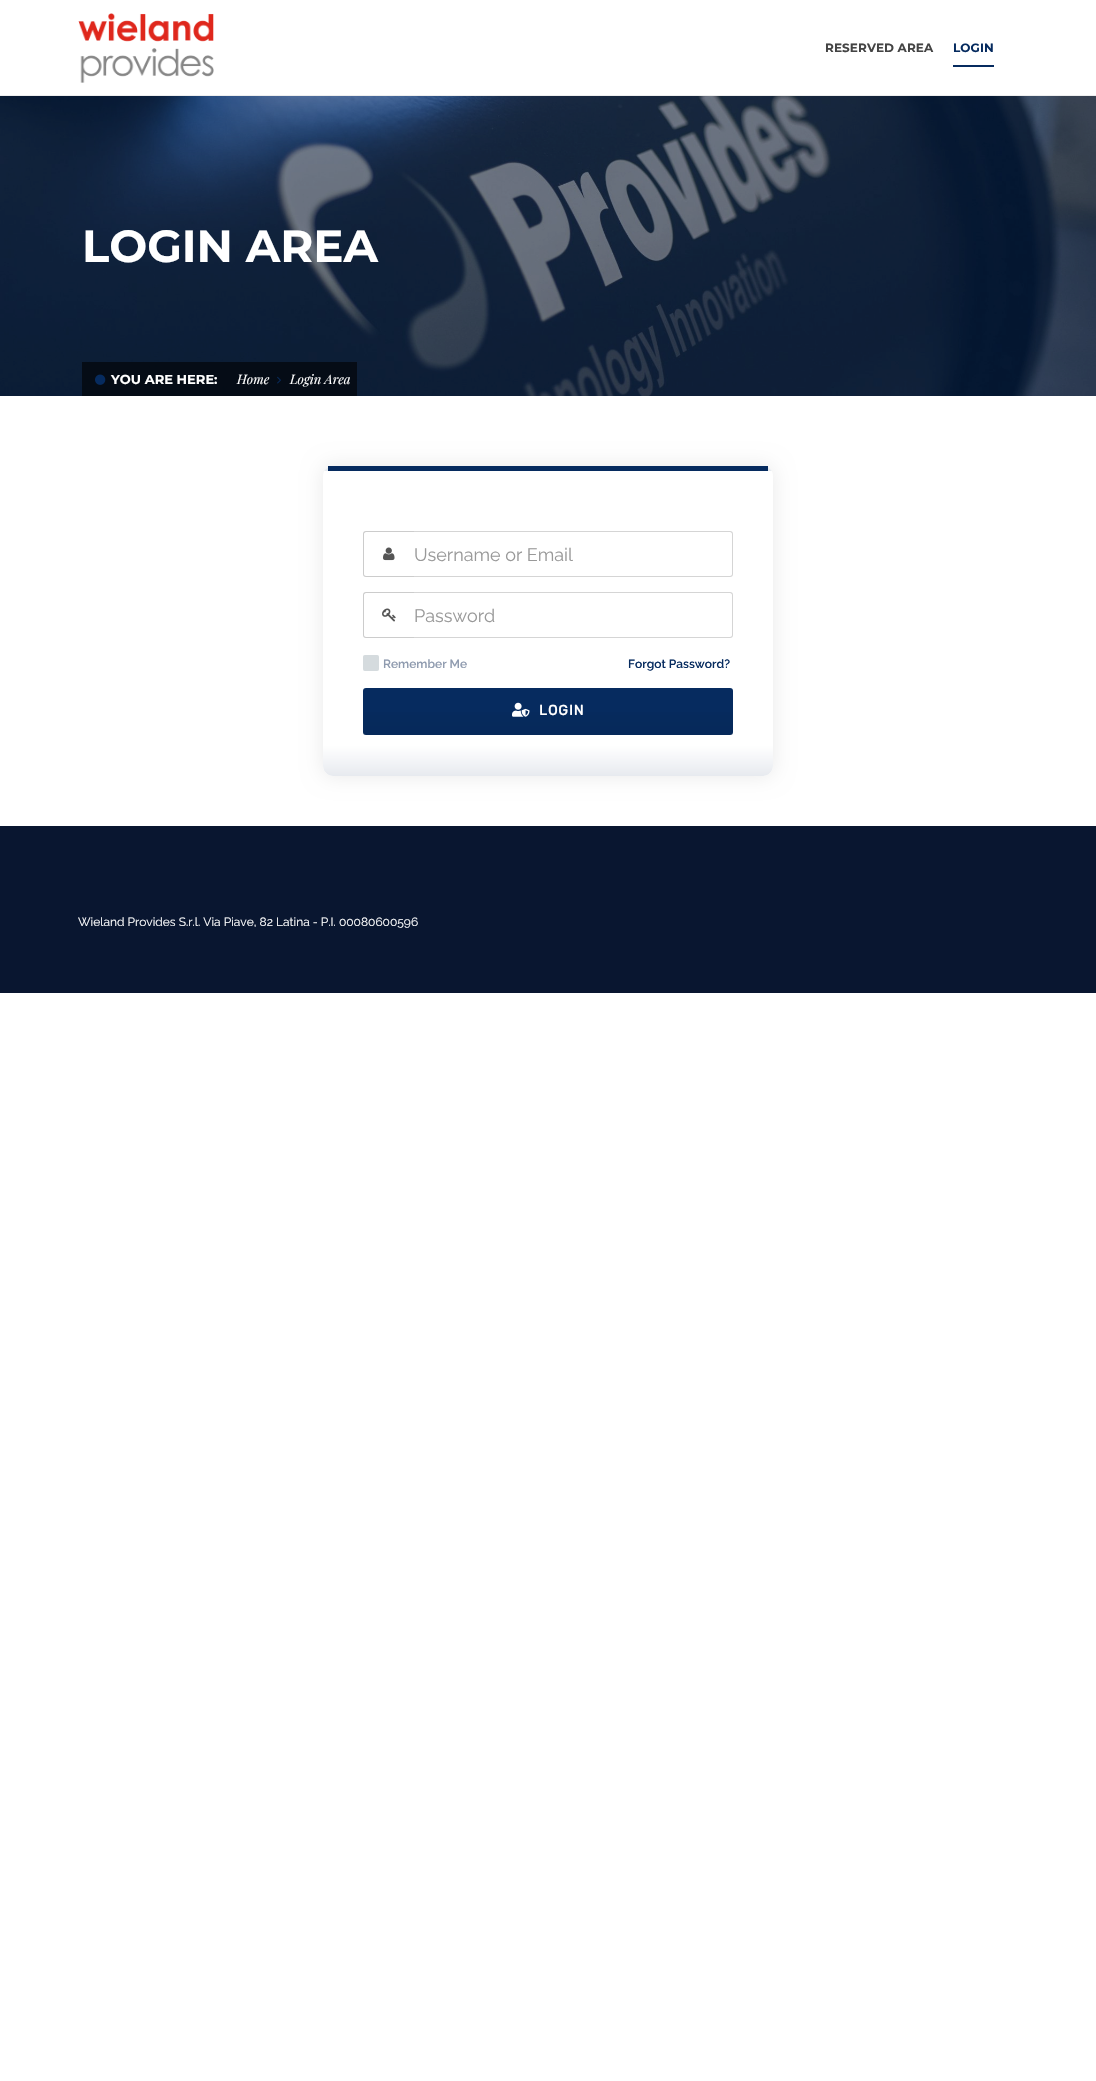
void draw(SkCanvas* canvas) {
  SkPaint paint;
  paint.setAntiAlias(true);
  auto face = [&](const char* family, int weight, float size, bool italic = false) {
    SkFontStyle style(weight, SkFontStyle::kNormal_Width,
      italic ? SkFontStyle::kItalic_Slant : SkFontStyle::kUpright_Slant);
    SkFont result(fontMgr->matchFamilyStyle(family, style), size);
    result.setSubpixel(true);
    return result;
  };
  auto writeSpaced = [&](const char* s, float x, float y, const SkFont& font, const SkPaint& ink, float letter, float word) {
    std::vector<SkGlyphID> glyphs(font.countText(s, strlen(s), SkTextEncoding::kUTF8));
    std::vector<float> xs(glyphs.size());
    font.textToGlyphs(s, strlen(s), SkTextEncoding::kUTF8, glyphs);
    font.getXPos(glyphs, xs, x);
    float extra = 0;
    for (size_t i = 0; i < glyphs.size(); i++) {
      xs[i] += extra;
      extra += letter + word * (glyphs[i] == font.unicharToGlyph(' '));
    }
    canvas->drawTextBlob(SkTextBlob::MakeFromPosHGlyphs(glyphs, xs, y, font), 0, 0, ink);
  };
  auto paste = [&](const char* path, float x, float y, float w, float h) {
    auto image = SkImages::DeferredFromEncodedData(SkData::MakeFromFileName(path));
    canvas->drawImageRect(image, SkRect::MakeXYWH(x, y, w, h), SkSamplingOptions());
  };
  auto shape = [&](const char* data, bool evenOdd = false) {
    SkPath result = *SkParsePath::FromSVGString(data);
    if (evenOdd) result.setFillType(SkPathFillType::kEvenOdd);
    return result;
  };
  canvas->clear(0xffffffff);
  paint.setColor(0xffeeeeee);
  canvas->drawRect(SkRect::MakeXYWH(0, 95, 1096, 1), paint);
  paste("img/1.png", 78, 13, 136, 70);
  paint.setColor(0xff062b5f);
  canvas->drawRect(SkRect::MakeXYWH(953, 65, 41, 2), paint);
  paste("img/2.png", 0, 96, 1096, 300);
  paint.setColor(0x99000000);
  canvas->drawRect(SkRect::MakeXYWH(82, 362, 275, 34), paint);
  paste("img/3.png", 95, 374, 11, 11);
  paste("img/4.png", 277, 376, 4, 8);
  paint.setColor(0x14000000);
  paint.setMaskFilter(SkMaskFilter::MakeBlur(kNormal_SkBlurStyle, 10));
  canvas->drawRoundRect(SkRect::MakeXYWH(322, 465, 452, 312), 11, 11, paint);
  paint.setMaskFilter(nullptr);
  paint.setColor(0xffffffff);
  canvas->drawRoundRect(SkRect::MakeXYWH(323, 466, 450, 310), 10, 10, paint);
  canvas->save();
  canvas->clipPath(shape("M333 466H763C768.5 466 773 470.5 773 476V766C773 771.5 768.5 776 763 776H333C327.5 776 323 771.5 323 766V476C323 470.5 327.5 466 333 466Z"), true);
  {
    const SkColor colors[] = {0xffffffff, 0xffe6eaef};
    const float stops[] = {0.9f, 1};
    const SkPoint ends[] = {{548, 166}, {548, 471}};
    paint.setShader(SkGradientShader::MakeLinear(ends, colors, stops, 2, SkTileMode::kClamp));
    paint.setAlpha(255);
  }
  canvas->drawRect(SkRect::MakeXYWH(323, 467, 450, 4), paint);
  {
    const SkColor colors[] = {0xffffffff, 0xffe7eaef};
    const float stops[] = {0.9f, 1};
    const SkPoint ends[] = {{548, 471}, {548, 776}};
    paint.setShader(SkGradientShader::MakeLinear(ends, colors, stops, 2, SkTileMode::kClamp));
    paint.setAlpha(255);
  }
  canvas->drawPath(shape("M323 471H773V766C773 771.5 768.5 776 763 776H333C327.5 776 323 771.5 323 766Z"), paint);
  canvas->restore();
  paint.setShader(nullptr);
  paint.setColor(0xff062b5f);
  canvas->drawRect(SkRect::MakeXYWH(328, 466, 440, 5), paint);
  paint.setColor(0xffcccccc);
  canvas->drawPath(shape("M366 531H414V577H366C364 577 363 576 363 574V534C363 532 364 531 366 531ZM366 532H414V576H366C365 576 364 575 364 574V534C364 533 365 532 366 532Z", true), paint);
  paste("img/5.png", 383, 547, 12, 14);
  paint.setColor(0xffd5d5d5);
  canvas->drawPath(shape("M414 531H730C732 531 733 532 733 534V574C733 576 732 577 730 577H414ZM414 532H730C731 532 732 533 732 534V574C732 575 731 576 730 576H414Z", true), paint);
  paint.setColor(0xffcccccc);
  canvas->drawPath(shape("M366 592H414V638H366C364 638 363 637 363 635V595C363 593 364 592 366 592ZM366 593H414V637H366C365 637 364 636 364 635V595C364 594 365 593 366 593Z", true), paint);
  paste("img/6.png", 382, 608, 14, 14);
  paint.setColor(0xffd5d5d5);
  canvas->drawPath(shape("M414 592H730C732 592 733 593 733 595V635C733 637 732 638 730 638H414ZM414 593H730C731 593 732 594 732 595V635C732 636 731 637 730 637H414Z", true), paint);
  paint.setColor(0xffd5dbde);
  canvas->drawRoundRect(SkRect::MakeXYWH(363.5f, 655.5f, 15, 15), 1, 1, paint);
  paint.setStroke(true);
  paint.setStrokeWidth(1);
  canvas->drawRoundRect(SkRect::MakeXYWH(363.5f, 655.5f, 15, 15), 1, 1, paint);
  paint.setStroke(false);
  paint.setColor(0xff062b5f);
  canvas->drawRoundRect(SkRect::MakeXYWH(363, 688, 370, 47), 3, 3, paint);
  {
    const SkColor colors[] = {0x00000000, 0x0d000000};
    const float stops[] = {0, 1};
    const SkPoint ends[] = {{548, 688}, {548, 735}};
    paint.setShader(SkGradientShader::MakeLinear(ends, colors, stops, 2, SkTileMode::kClamp));
    paint.setAlpha(255);
  }
  canvas->drawRect(SkRect::MakeXYWH(363, 712, 370, 23), paint);
  paste("img/7.png", 512, 702, 18, 15);
  paint.setShader(nullptr);
  paint.setColor(0xff091630);
  canvas->drawRect(SkRect::MakeXYWH(0, 826, 1096, 167), paint);
  auto f0 = face("Montserrat", 700, 12);
  paint.setColor(0xff444444);
  writeSpaced("RESERVED AREA", 825, 52, f0, paint, 0.1f, 0);
  paint.setColor(0xff062b5f);
  writeSpaced("LOGIN", 953, 52, f0, paint, 0.1f, 0);
  auto f1 = face("Montserrat", 700, 45);
  paint.setColor(0xffffffff);
  canvas->drawString("LOGIN AREA", 82, 262, f1, paint);
  auto f2 = face("Montserrat", 700, 13);
  canvas->drawString("YOU ARE HERE:", 111, 384, f2, paint);
  auto f3 = face("Playfair Display", 400, 13, true);
  canvas->drawString("Home", 237, 384, f3, paint);
  canvas->drawString("Login Area", 290, 384, f3, paint);
  auto f4 = face("Raleway", 400, 18);
  paint.setColor(0xff999999);
  canvas->drawString("Username or Email", 414, 561, f4, paint);
  canvas->drawString("Password", 414, 622, f4, paint);
  auto f5 = face("Raleway", 600, 12);
  paint.setColor(0xff8f9baf);
  canvas->drawString("Remember Me", 383, 668, f5, paint);
  paint.setColor(0xff062b5f);
  canvas->drawString("Forgot Password?", 628, 668, f5, paint);
  auto f6 = face("Rubik", 700, 14);
  paint.setColor(0xffffffff);
  writeSpaced("LOGIN", 539, 715, f6, paint, 1, 0);
  auto f7 = face("Raleway", 400, 12);
  canvas->drawString("Wieland Provides S.r.l. Via Piave, 82 Latina - P.I. 00080600596", 78, 926, f7, paint);
}
